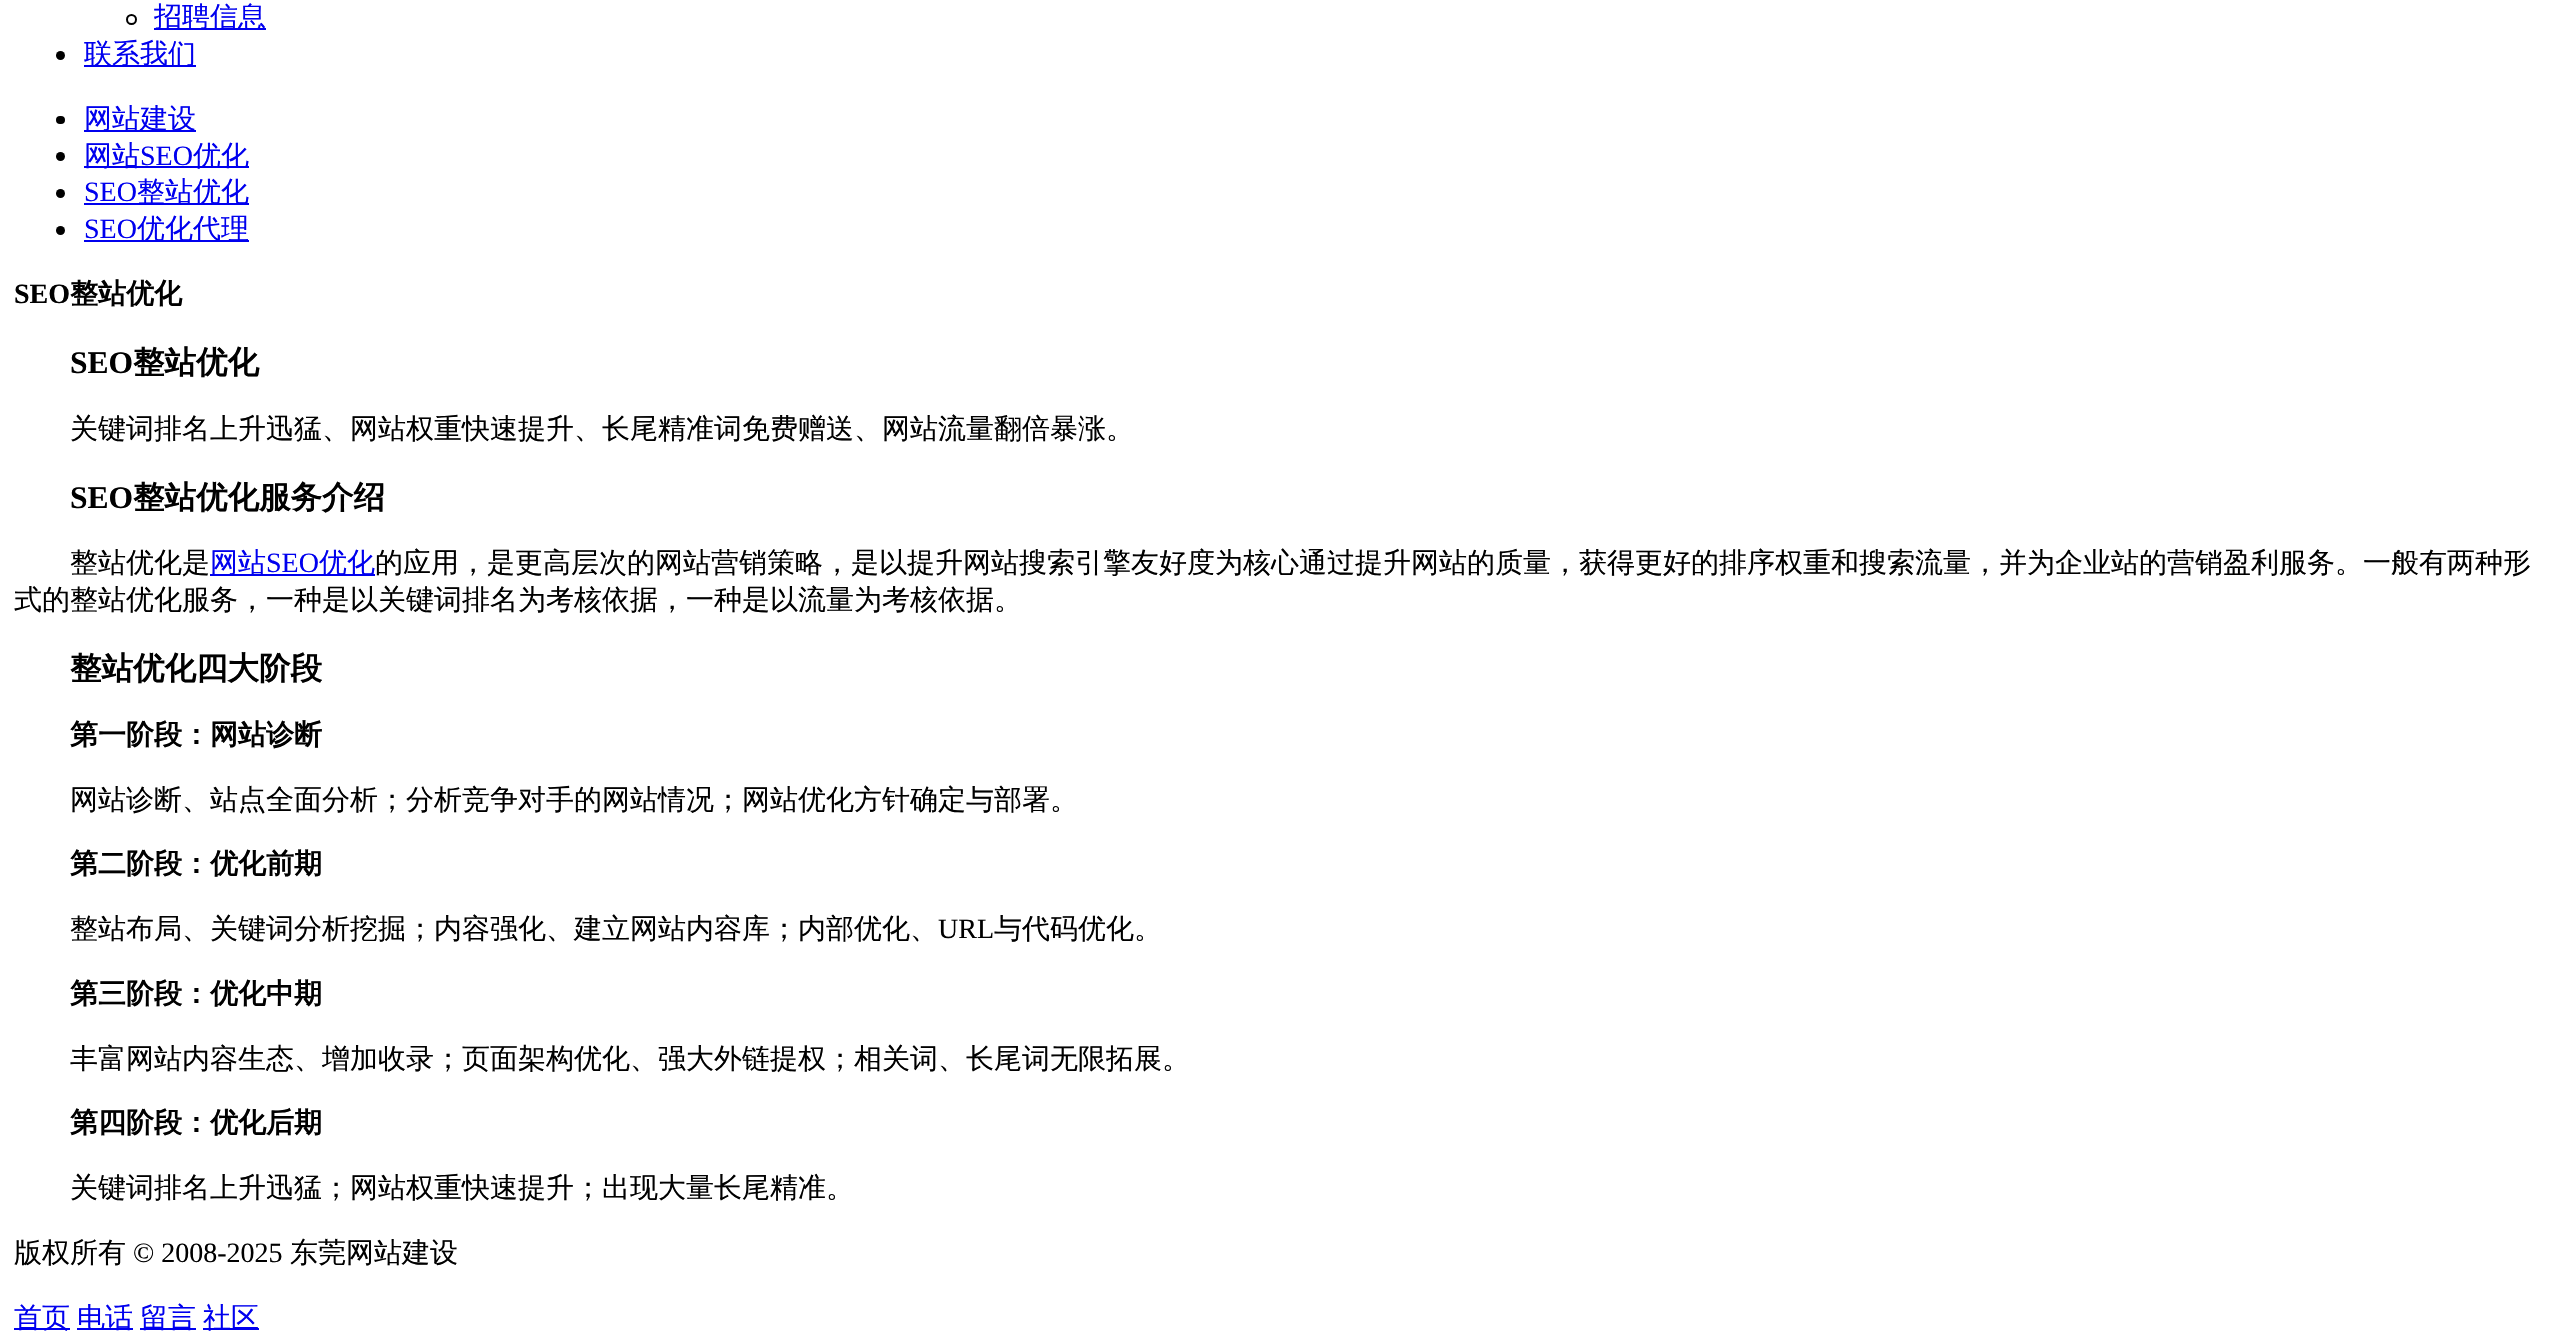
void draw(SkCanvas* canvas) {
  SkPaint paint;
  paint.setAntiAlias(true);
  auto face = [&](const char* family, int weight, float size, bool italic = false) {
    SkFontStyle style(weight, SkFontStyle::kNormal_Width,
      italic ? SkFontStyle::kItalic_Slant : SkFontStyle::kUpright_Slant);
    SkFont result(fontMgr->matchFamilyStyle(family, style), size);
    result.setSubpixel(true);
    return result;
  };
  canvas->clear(0xffffffff);
  paint.setStroke(true);
  paint.setStrokeWidth(2);
  paint.setColor(0xff000000);
  canvas->drawCircle(131.5f, 19.5f, 4.5f, paint);
  paint.setStroke(false);
  paint.setColor(0xff0000ee);
  canvas->drawRect(SkRect::MakeXYWH(154, 28, 112, 2), paint);
  paint.setColor(0xff000000);
  canvas->drawCircle(60.5f, 55.5f, 4.5f, paint);
  paint.setColor(0xff0000ee);
  canvas->drawRect(SkRect::MakeXYWH(84, 65, 112, 2), paint);
  paint.setColor(0xff000000);
  canvas->drawRoundRect(SkRect::MakeXYWH(56, 116, 9, 8), 4, 4, paint);
  paint.setColor(0xff0000ee);
  canvas->drawRect(SkRect::MakeXYWH(84, 130, 112, 2), paint);
  paint.setColor(0xff000000);
  canvas->drawCircle(60.5f, 156.5f, 4.5f, paint);
  paint.setColor(0xff0000ee);
  canvas->drawRect(SkRect::MakeXYWH(84, 166, 165, 2), paint);
  paint.setColor(0xff000000);
  canvas->drawCircle(60.5f, 193.5f, 4.5f, paint);
  paint.setColor(0xff0000ee);
  canvas->drawRect(SkRect::MakeXYWH(84, 203, 165, 2), paint);
  paint.setColor(0xff000000);
  canvas->drawCircle(60.5f, 230.5f, 4.5f, paint);
  {
    const struct { float x, y, w, h; SkColor color; } items[] = {
      {84, 240, 165, 2, 0xff0000ee},
      {210, 574, 165, 2, 0xff0000ee},
      {14, 1328, 56, 2, 0xff0000ee},
      {77, 1328, 56, 2, 0xff0000ee},
      {140, 1328, 56, 2, 0xff0000ee},
      {203, 1328, 56, 2, 0xff0000ee},
    };
    for (auto [x, y, w, h, color] : items) {
      paint.setColor(color);
      canvas->drawRect(SkRect::MakeXYWH(x, y, w, h), paint);
    }
  }
  auto f0 = face("WenQuanYi Zen Hei", 500, 28);
  {
    const struct { const char* s; float x, y; } items[] = {
      {"招聘信息", 154, 26},
      {"联系我们", 84, 63},
      {"网站建设", 84, 128},
      {"网站", 84, 165},
    };
    for (auto [s, x, y] : items) {
      canvas->drawString(s, x, y, f0, paint);
    }
  }
  auto f1 = face("Liberation Serif", 400, 28);
  canvas->drawString("SEO", 140, 165, f1, paint);
  canvas->drawString("优化", 193, 165, f0, paint);
  canvas->drawString("SEO", 84, 201, f1, paint);
  canvas->drawString("整站优化", 137, 201, f0, paint);
  canvas->drawString("SEO", 84, 238, f1, paint);
  canvas->drawString("优化代理", 137, 238, f0, paint);
  auto f2 = face("Liberation Serif", 700, 28);
  paint.setColor(0xff000000);
  canvas->drawString("SEO", 14, 303, f2, paint);
  auto f3 = face("WenQuanYi Zen Hei", 700, 28);
  canvas->drawString("整站优化", 70, 303, f3, paint);
  auto f4 = face("Liberation Serif", 700, 31.5f);
  canvas->drawString("SEO", 70, 373, f4, paint);
  auto f5 = face("WenQuanYi Zen Hei", 700, 31.5f);
  canvas->drawString("整站优化", 133, 373, f5, paint);
  canvas->drawString("关键词排名上升迅猛、网站权重快速提升、长尾精准词免费赠送、网站流量翻倍暴涨。", 70, 438, f0, paint);
  canvas->drawString("SEO", 70, 508, f4, paint);
  canvas->drawString("整站优化服务介绍", 133, 508, f5, paint);
  canvas->drawString("整站优化是", 70, 572, f0, paint);
  paint.setColor(0xff0000ee);
  canvas->drawString("网站", 210, 572, f0, paint);
  canvas->drawString("SEO", 266, 572, f1, paint);
  canvas->drawString("优化", 319, 572, f0, paint);
  paint.setColor(0xff000000);
  canvas->drawString("的应用，是更高层次的网站营销策略，是以提升网站搜索引擎友好度为核心通过提升网站的质量，获得更好的排序权重和搜索流量，并为企业站的营销盈利服务。一般有两种形", 375, 572, f0, paint);
  canvas->drawString("式的整站优化服务，一种是以关键词排名为考核依据，一种是以流量为考核依据。", 14, 609, f0, paint);
  canvas->drawString("整站优化四大阶段", 70, 679, f5, paint);
  canvas->drawString("第一阶段：网站诊断", 70, 744, f3, paint);
  canvas->drawString("网站诊断、站点全面分析；分析竞争对手的网站情况；网站优化方针确定与部署。", 70, 809, f0, paint);
  canvas->drawString("第二阶段：优化前期", 70, 873, f3, paint);
  canvas->drawString("整站布局、关键词分析挖掘；内容强化、建立网站内容库；内部优化、", 70, 938, f0, paint);
  canvas->drawString("URL", 938, 938, f1, paint);
  canvas->drawString("与代码优化。", 994, 938, f0, paint);
  canvas->drawString("第三阶段：优化中期", 70, 1003, f3, paint);
  canvas->drawString("丰富网站内容生态、增加收录；页面架构优化、强大外链提权；相关词、长尾词无限拓展。", 70, 1068, f0, paint);
  canvas->drawString("第四阶段：优化后期", 70, 1132, f3, paint);
  canvas->drawString("关键词排名上升迅猛；网站权重快速提升；出现大量长尾精准。", 70, 1197, f0, paint);
  canvas->drawString("版权所有", 14, 1262, f0, paint);
  canvas->drawString("© 2008-2025", 133, 1262, f1, paint);
  canvas->drawString("东莞网站建设", 290, 1262, f0, paint);
  paint.setColor(0xff0000ee);
  {
    const struct { const char* s; float x, y; } items[] = {
      {"首页", 14, 1327},
      {"电话", 77, 1327},
      {"留言", 140, 1327},
      {"社区", 203, 1327},
    };
    for (auto [s, x, y] : items) {
      canvas->drawString(s, x, y, f0, paint);
    }
  }
}
